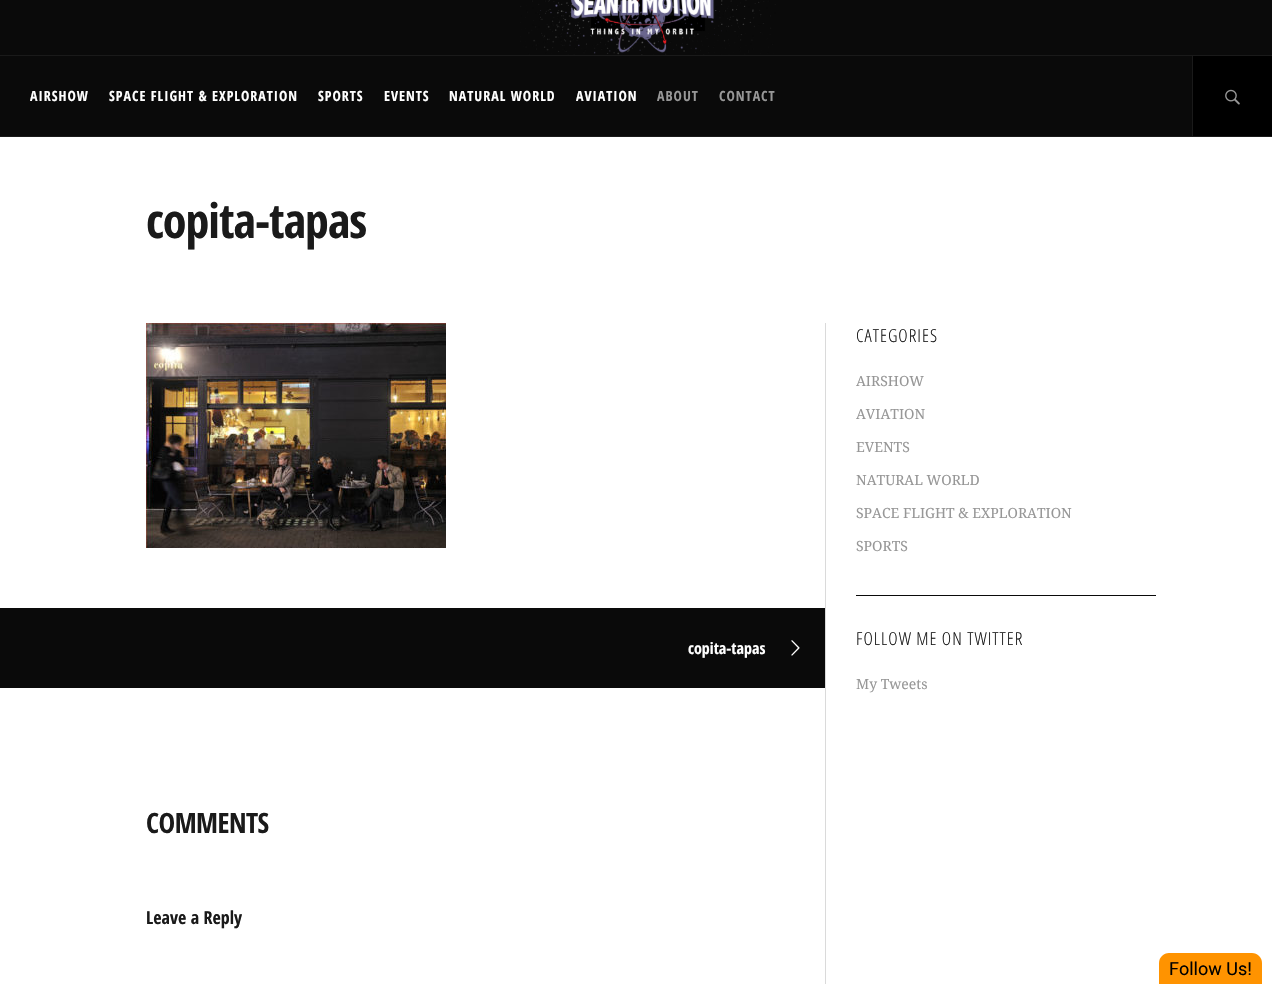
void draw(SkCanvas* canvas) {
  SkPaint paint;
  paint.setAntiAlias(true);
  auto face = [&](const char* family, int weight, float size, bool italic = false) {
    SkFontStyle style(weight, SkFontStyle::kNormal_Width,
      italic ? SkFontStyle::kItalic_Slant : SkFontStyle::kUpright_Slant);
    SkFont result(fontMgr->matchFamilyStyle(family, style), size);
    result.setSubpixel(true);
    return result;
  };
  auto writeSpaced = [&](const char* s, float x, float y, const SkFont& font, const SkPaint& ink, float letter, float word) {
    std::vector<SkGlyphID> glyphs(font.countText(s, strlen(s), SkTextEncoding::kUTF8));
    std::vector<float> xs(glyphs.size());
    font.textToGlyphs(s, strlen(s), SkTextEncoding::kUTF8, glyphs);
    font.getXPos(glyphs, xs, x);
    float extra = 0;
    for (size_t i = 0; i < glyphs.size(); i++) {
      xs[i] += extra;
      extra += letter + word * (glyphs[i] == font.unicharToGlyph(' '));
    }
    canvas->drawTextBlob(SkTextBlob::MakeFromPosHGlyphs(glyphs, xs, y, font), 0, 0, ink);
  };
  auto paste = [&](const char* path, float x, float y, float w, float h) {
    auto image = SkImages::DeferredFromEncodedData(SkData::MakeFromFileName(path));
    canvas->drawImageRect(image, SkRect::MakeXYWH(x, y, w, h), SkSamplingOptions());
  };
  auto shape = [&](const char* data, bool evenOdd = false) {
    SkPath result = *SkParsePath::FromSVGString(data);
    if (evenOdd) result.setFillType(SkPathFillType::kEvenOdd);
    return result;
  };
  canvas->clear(0xffffffff);
  paint.setColor(0xff0a0a0a);
  canvas->drawRect(SkRect::MakeXYWH(0, 0, 1272, 55), paint);
  paint.setColor(0xff1a1a1a);
  canvas->drawRect(SkRect::MakeXYWH(0, 55, 1272, 1), paint);
  paste("img/1.png", 520, 0, 256, 55);
  {
    const struct { float x, y, w, h; SkColor color; } items[] = {
      {0, 56, 1192, 80, 0xff0a0a0a},
      {0, 136, 1272, 1, 0xff1a1a1a},
      {1192, 56, 1, 80, 0xff1a1a1a},
      {1193, 56, 79, 80, 0xff000000},
    };
    for (auto [x, y, w, h, color] : items) {
      paint.setColor(color);
      canvas->drawRect(SkRect::MakeXYWH(x, y, w, h), paint);
    }
  }
  paste("img/2.png", 1225, 89, 15, 16);
  paint.setColor(0xff0a0a0a);
  canvas->drawRect(SkRect::MakeXYWH(856, 595, 300, 1), paint);
  paint.setColor(0xffdadada);
  canvas->drawRect(SkRect::MakeXYWH(825, 323, 1, 661), paint);
  paste("img/3.png", 146, 323, 300, 225);
  paint.setColor(0xff0a0a0a);
  canvas->drawRect(SkRect::MakeXYWH(0, 608, 825, 80), paint);
  paste("img/4.png", 791, 640, 9, 16);
  paint.setColor(0xffff9300);
  canvas->drawPath(shape("M1169 953H1252C1257.5 953 1262 957.5 1262 963V984H1159V963C1159 957.5 1163.5 953 1169 953Z"), paint);
  auto f0 = face("Open Sans Condensed", 700, 14);
  paint.setColor(0xffffffff);
  {
    const struct { const char* s; float x, y; } items[] = {
      {"AIRSHOW", 30, 101},
      {"SPACE FLIGHT & EXPLORATION", 109, 101},
      {"SPORTS", 318, 101},
      {"EVENTS", 384, 101},
      {"NATURAL WORLD", 449, 101},
      {"AVIATION", 576, 101},
    };
    for (auto [s, x, y] : items) {
      writeSpaced(s, x, y, f0, paint, 1, 0);
    }
  }
  paint.setColor(0xff979797);
  writeSpaced("ABOUT", 657, 101, f0, paint, 1, 0);
  writeSpaced("CONTACT", 719, 101, f0, paint, 1, 0);
  auto f1 = face("Open Sans Condensed", 700, 48);
  paint.setColor(0xff1a1a1a);
  writeSpaced("copita-tapas", 146, 238, f1, paint, -1, 0);
  auto f2 = face("Open Sans Condensed", 300, 18);
  writeSpaced("CATEGORIES", 856, 342, f2, paint, 1, 0);
  auto f3 = face("Droid Serif", 400, 14);
  paint.setColor(0xff979797);
  {
    const struct { const char* s; float x, y; } items[] = {
      {"AIRSHOW", 856, 386},
      {"AVIATION", 856, 419},
      {"EVENTS", 856, 452},
      {"NATURAL WORLD", 856, 485},
      {"SPACE FLIGHT & EXPLORATION", 856, 518},
      {"SPORTS", 856, 551},
    };
    for (auto [s, x, y] : items) {
      canvas->drawString(s, x, y, f3, paint);
    }
  }
  paint.setColor(0xff1a1a1a);
  writeSpaced("FOLLOW ME ON TWITTER", 856, 645, f2, paint, 1, 0);
  paint.setColor(0xff979797);
  canvas->drawString("My Tweets", 856, 689, f3, paint);
  auto f4 = face("Open Sans Condensed", 700, 16);
  paint.setColor(0xffffffff);
  canvas->drawString("copita-tapas", 688, 654, f4, paint);
  auto f5 = face("Open Sans Condensed", 700, 28);
  paint.setColor(0xff1a1a1a);
  writeSpaced("COMMENTS", 146, 833, f5, paint, -0.5f, 0);
  auto f6 = face("Open Sans Condensed", 700, 18);
  canvas->drawString("Leave a Reply", 146, 924, f6, paint);
  auto f7 = face("Roboto", 400, 18);
  paint.setColor(0xff000000);
  canvas->drawString("Follow Us!", 1169, 975, f7, paint);
}
